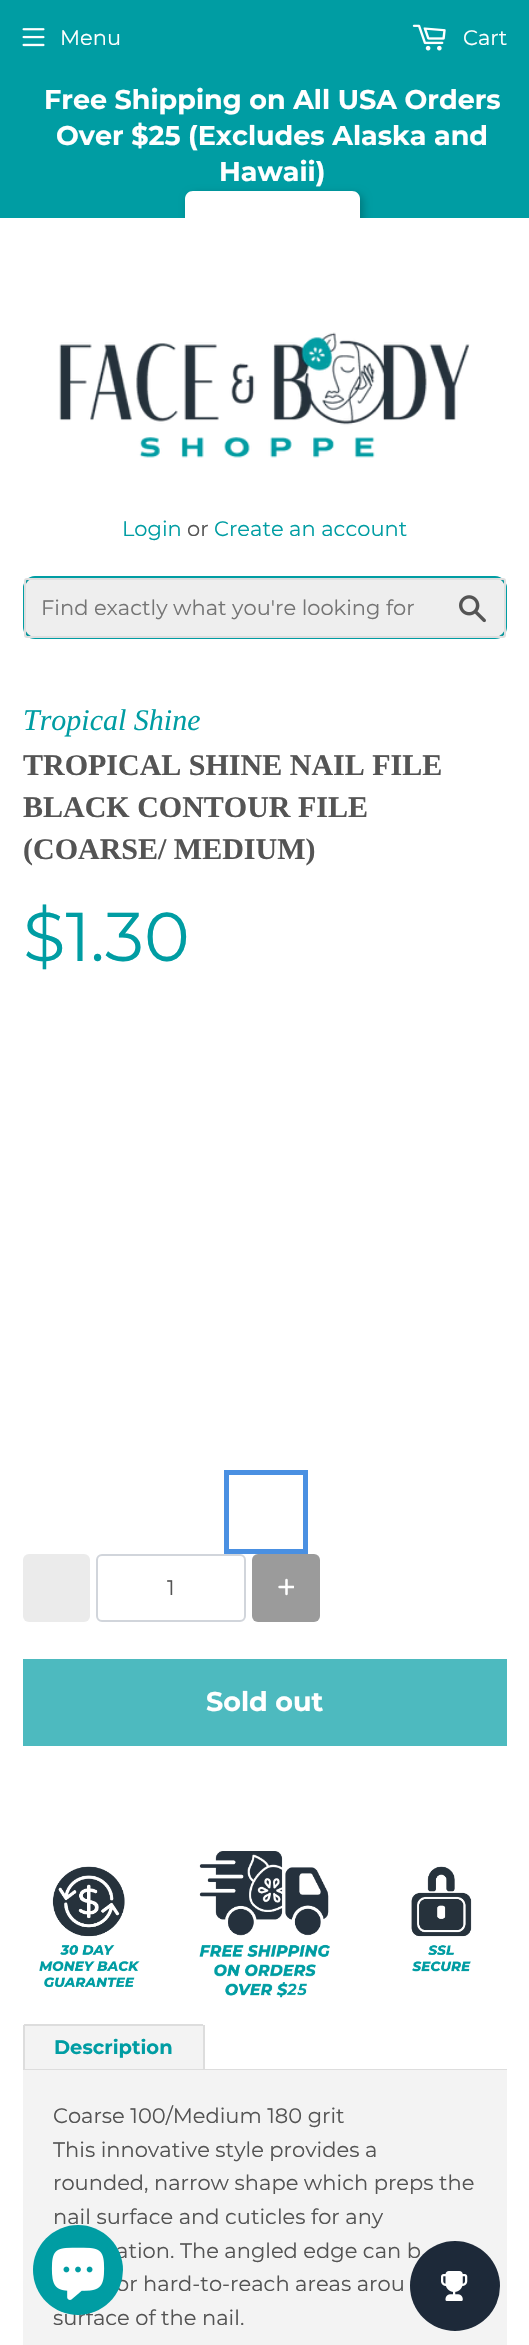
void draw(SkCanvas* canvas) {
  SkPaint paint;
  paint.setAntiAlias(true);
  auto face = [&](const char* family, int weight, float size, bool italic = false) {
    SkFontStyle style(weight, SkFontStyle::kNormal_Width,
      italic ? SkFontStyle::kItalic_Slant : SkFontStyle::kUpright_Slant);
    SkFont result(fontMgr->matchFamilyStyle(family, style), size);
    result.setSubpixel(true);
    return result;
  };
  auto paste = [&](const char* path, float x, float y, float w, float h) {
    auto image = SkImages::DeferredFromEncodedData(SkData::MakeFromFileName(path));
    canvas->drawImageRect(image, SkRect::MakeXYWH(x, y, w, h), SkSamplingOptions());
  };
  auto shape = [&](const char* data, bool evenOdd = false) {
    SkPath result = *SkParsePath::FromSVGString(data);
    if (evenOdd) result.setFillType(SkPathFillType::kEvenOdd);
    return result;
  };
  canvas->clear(0xffffffff);
  paint.setColor(0xff009da3);
  canvas->drawRect(SkRect::MakeXYWH(0, 0, 529, 218), paint);
  paste("img/1.png", 22, 28, 23, 19);
  paste("img/2.png", 412, 24, 34, 27);
  paste("img/3.png", 59, 332, 411, 126);
  paint.setStroke(true);
  paint.setStrokeWidth(2);
  canvas->drawRoundRect(SkRect::MakeXYWH(24, 577, 482, 61), 11, 11, paint);
  paint.setStroke(false);
  paint.setColor(0x1a545454);
  canvas->drawRoundRect(SkRect::MakeXYWH(25, 579, 480, 58), 2, 2, paint);
  paint.setStroke(true);
  paint.setColor(0xffdedede);
  canvas->drawRoundRect(SkRect::MakeXYWH(25, 579, 480, 58), 2, 2, paint);
  paste("img/4.png", 459, 595, 27, 28);
  canvas->save();
  canvas->clipRect(SkRect::MakeXYWH(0, 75, 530, 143));
  paint.setStroke(false);
  paint.setColor(0x3d000000);
  paint.setMaskFilter(SkMaskFilter::MakeBlur(kNormal_SkBlurStyle, 4));
  canvas->drawRoundRect(SkRect::MakeXYWH(188, 194, 175, 55), 8, 8, paint);
  paint.setMaskFilter(nullptr);
  canvas->restore();
  paint.setColor(0xffffffff);
  canvas->drawPath(shape("M193 191H352C356.5 191 360 194.5 360 199V218H185V199C185 194.5 188.5 191 193 191Z"), paint);
  paint.setStroke(true);
  paint.setStrokeWidth(5);
  paint.setColor(0xff4a90e2);
  canvas->drawRect(SkRect::MakeXYWH(226.5f, 1472.5f, 79, 79), paint);
  paint.setStroke(false);
  paint.setColor(0xffebebeb);
  canvas->drawRoundRect(SkRect::MakeXYWH(23, 1554, 67, 68), 6, 6, paint);
  paint.setStroke(true);
  paint.setStrokeWidth(2);
  paint.setColor(0xffd1d5db);
  canvas->drawRoundRect(SkRect::MakeXYWH(97, 1555, 148, 66), 5, 5, paint);
  paint.setStroke(false);
  paint.setColor(0xff9b9b9b);
  canvas->drawRoundRect(SkRect::MakeXYWH(252, 1554, 68, 68), 6, 6, paint);
  paste("img/5.png", 278, 1578, 16, 18);
  paint.setColor(0xff4dbabf);
  canvas->drawRect(SkRect::MakeXYWH(23, 1659, 484, 87), paint);
  paste("img/6.png", 39, 1866, 101, 122);
  paste("img/7.png", 199, 1851, 131, 147);
  paste("img/8.png", 411, 1866, 61, 106);
  paint.setColor(0xffdddddd);
  canvas->drawRect(SkRect::MakeXYWH(23, 2069, 484, 1), paint);
  paint.setColor(0xfff3f3f3);
  canvas->drawPath(shape("M26 2024H201C202.5 2024 204 2025.5 204 2027V2069H23V2027C23 2025.5 24.5 2024 26 2024Z"), paint);
  {
    const struct { float x, y, w, h; SkColor color; } items[] = {
      {24, 2024, 179, 2, 0xffdddddd},
      {203, 2025, 2, 44, 0xffdddddd},
      {23, 2025, 2, 44, 0xffdddddd},
      {23, 2070, 484, 275, 0xfff3f3f3},
    };
    for (auto [x, y, w, h, color] : items) {
      paint.setColor(color);
      canvas->drawRect(SkRect::MakeXYWH(x, y, w, h), paint);
    }
  }
  auto f0 = face("Montserrat", 100, 21);
  paint.setColor(0xffffffff);
  canvas->drawString("Menu", 60, 45, f0, paint);
  canvas->drawString("Cart", 463, 45, f0, paint);
  paint.setColor(0xff009da3);
  canvas->drawString("Login", 122, 536, f0, paint);
  paint.setColor(0xff545454);
  canvas->drawString("or", 187, 536, f0, paint);
  paint.setColor(0xff009da3);
  canvas->drawString("Create an account", 214, 536, f0, paint);
  paint.setColor(0xff757575);
  canvas->drawString("Find exactly what you're looking for", 41, 615, f0, paint);
  auto f1 = face("Montserrat", 700, 27);
  paint.setColor(0xffffffff);
  {
    const struct { const char* s; float x, y; } items[] = {
      {"Free Shipping on All USA Orders", 44, 109},
      {"Over $25 (Excludes Alaska and", 56, 145},
      {"Hawaii)", 219, 181},
    };
    for (auto [s, x, y] : items) {
      canvas->drawString(s, x, y, f1, paint);
    }
  }
  auto f2 = face("Liberation Serif", 400, 30, true);
  paint.setColor(0xff009da3);
  canvas->drawString("Tropical Shine", 23, 730, f2, paint);
  auto f3 = face("Liberation Serif", 700, 30);
  paint.setColor(0xff545454);
  {
    const struct { const char* s; float x, y; } items[] = {
      {"TROPICAL SHINE NAIL FILE", 23, 775},
      {"BLACK CONTOUR FILE", 23, 817},
      {"(COARSE/ MEDIUM)", 23, 859},
    };
    for (auto [s, x, y] : items) {
      canvas->drawString(s, x, y, f3, paint);
    }
  }
  auto f4 = face("Montserrat", 100, 69);
  paint.setColor(0xff009da3);
  canvas->drawString("$1.30", 23, 961, f4, paint);
  paint.setColor(0xff545454);
  canvas->drawString("1", 167, 1595, f0, paint);
  paint.setColor(0xffffffff);
  canvas->drawString("Sold out", 206, 1711, f1, paint);
  auto f5 = face("Montserrat", 700, 19.5f);
  paint.setColor(0xff009da3);
  canvas->drawString("Description", 54, 2054, f5, paint);
  paint.setColor(0xff545454);
  {
    const struct { const char* s; float x, y; } items[] = {
      {"Coarse 100/Medium 180 grit", 53, 2123},
      {"This innovative style provides a", 53, 2157},
      {"rounded, narrow shape which preps the", 53, 2190},
      {"nail surface and cuticles for any", 53, 2224},
      {"ation. The angled edge can b", 116, 2258},
      {"or hard-to-reach areas arou", 116, 2291},
      {"surface of the nail.", 53, 2325},
    };
    for (auto [s, x, y] : items) {
      canvas->drawString(s, x, y, f0, paint);
    }
  }
  paint.setColor(0xff009da3);
  canvas->drawCircle(78, 2270, 45, paint);
  paste("img/9.png", 51, 2247, 54, 53);
  paint.setColor(0xff1d2939);
  canvas->drawCircle(455, 2286, 45, paint);
  paste("img/10.png", 441, 2271, 27, 30);
}
